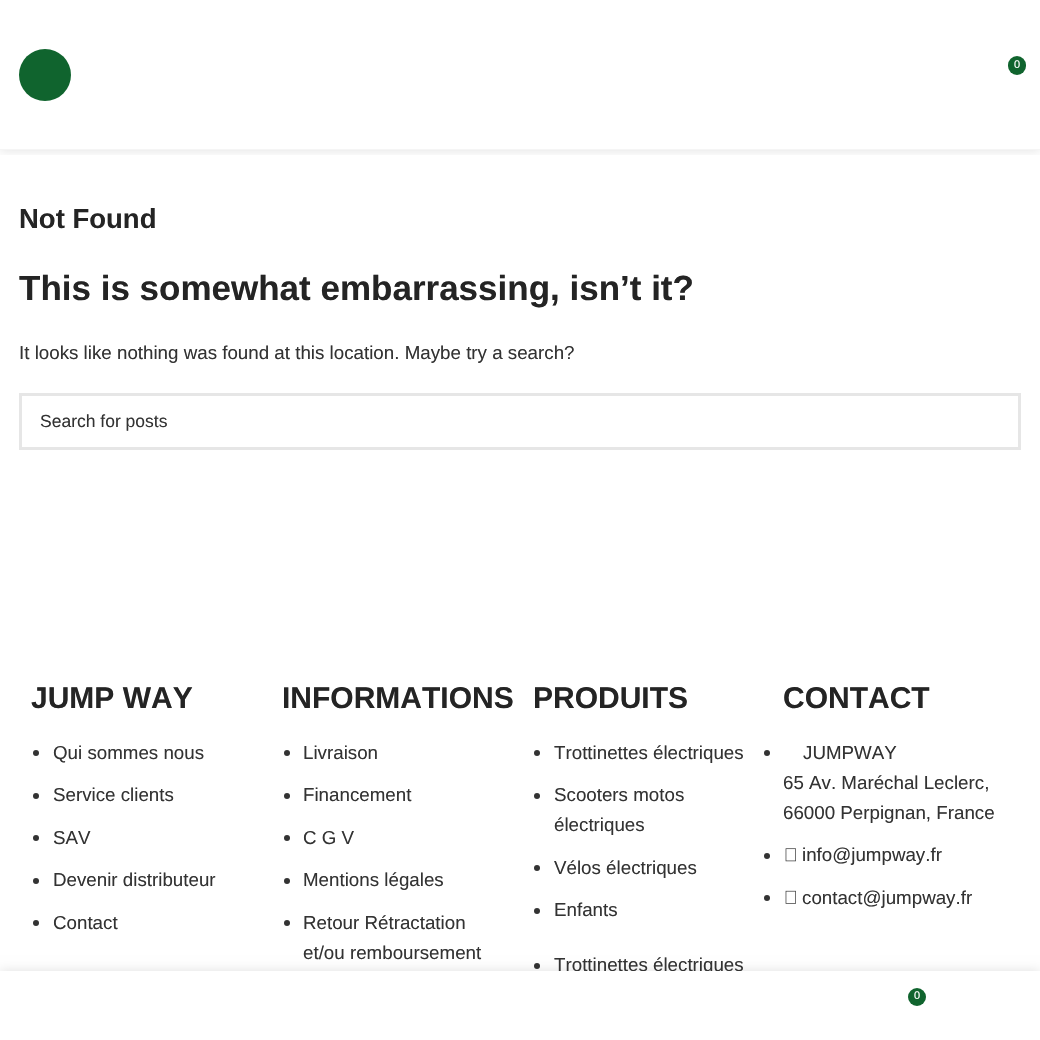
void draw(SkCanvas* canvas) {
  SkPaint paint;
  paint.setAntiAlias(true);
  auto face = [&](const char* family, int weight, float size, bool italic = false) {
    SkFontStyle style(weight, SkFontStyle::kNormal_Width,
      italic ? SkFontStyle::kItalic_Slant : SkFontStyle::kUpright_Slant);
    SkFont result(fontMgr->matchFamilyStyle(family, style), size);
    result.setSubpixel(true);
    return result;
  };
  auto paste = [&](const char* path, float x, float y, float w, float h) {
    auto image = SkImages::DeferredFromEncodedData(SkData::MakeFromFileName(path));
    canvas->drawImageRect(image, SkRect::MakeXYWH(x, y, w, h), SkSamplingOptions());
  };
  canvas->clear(0xffffffff);
  canvas->save();
  canvas->clipRect(SkRect::MakeXYWH(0, 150, 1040, 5));
  paint.setColor(0x1a000000);
  paint.setMaskFilter(SkMaskFilter::MakeBlur(kNormal_SkBlurStyle, 5));
  canvas->drawRect(SkRect::MakeXYWH(0, 1, 1040, 150), paint);
  paint.setMaskFilter(nullptr);
  canvas->restore();
  paint.setColor(0xfff5f5f5);
  canvas->drawRect(SkRect::MakeXYWH(0, 149, 1040, 1), paint);
  paint.setColor(0xff10642e);
  canvas->drawCircle(45, 75, 26, paint);
  canvas->drawRoundRect(SkRect::MakeXYWH(1008, 56, 18, 19), 9, 9, paint);
  paint.setStroke(true);
  paint.setStrokeWidth(3);
  paint.setColor(0xffe6e6e6);
  canvas->drawRect(SkRect::MakeXYWH(20.5f, 394.5f, 999, 54), paint);
  paint.setStroke(false);
  paint.setColor(0xff333333);
  canvas->drawCircle(36, 753, 3, paint);
  canvas->drawCircle(36, 796, 3, paint);
  canvas->drawCircle(36, 838, 3, paint);
  canvas->drawCircle(36, 881, 3, paint);
  canvas->drawCircle(36, 923, 3, paint);
  canvas->drawCircle(287, 753, 3, paint);
  canvas->drawCircle(287, 796, 3, paint);
  canvas->drawCircle(287, 838, 3, paint);
  canvas->drawCircle(287, 881, 3, paint);
  canvas->drawCircle(287, 923, 3, paint);
  canvas->drawCircle(537, 753, 3, paint);
  canvas->drawCircle(537, 796, 3, paint);
  canvas->drawCircle(537, 868, 3, paint);
  canvas->drawCircle(537, 911, 3, paint);
  canvas->drawCircle(537, 966, 3, paint);
  canvas->drawCircle(767, 753, 3, paint);
  canvas->drawCircle(767, 856, 3, paint);
  paste("img/1.png", 785, 848, 11, 14);
  canvas->drawCircle(767, 898, 3, paint);
  paste("img/2.png", 785, 890, 11, 14);
  paint.setColor(0x1f000000);
  paint.setMaskFilter(SkMaskFilter::MakeBlur(kNormal_SkBlurStyle, 5.5f));
  canvas->drawRect(SkRect::MakeXYWH(0, 971, 1040, 69), paint);
  paint.setMaskFilter(nullptr);
  auto f0 = face("Liberation Sans", 400, 11);
  paint.setColor(0xffffffff);
  canvas->drawString("0", 1014, 68, f0, paint);
  auto f1 = face("Liberation Sans", 700, 27.5f);
  paint.setColor(0xff242424);
  canvas->drawString("Not Found", 19, 228, f1, paint);
  auto f2 = face("Liberation Sans", 700, 35);
  canvas->drawString("This is somewhat embarrassing, isn’t it?", 19, 300, f2, paint);
  auto f3 = face("Liberation Sans", 400, 18.75f);
  paint.setColor(0xff333333);
  canvas->drawString("It looks like nothing was found at this location. Maybe try a search?", 19, 359, f3, paint);
  auto f4 = face("Liberation Sans", 400, 17.5f);
  canvas->drawString("Search for posts", 40, 427, f4, paint);
  auto f5 = face("Liberation Sans", 700, 30);
  paint.setColor(0xff242424);
  canvas->drawString("JUMP WAY", 31, 708, f5, paint);
  paint.setColor(0xff333333);
  {
    const struct { const char* s; float x, y; } items[] = {
      {"Qui sommes nous", 53, 759},
      {"Service clients", 53, 801},
      {"SAV", 53, 844},
      {"Devenir distributeur", 53, 886},
      {"Contact", 53, 929},
    };
    for (auto [s, x, y] : items) {
      canvas->drawString(s, x, y, f3, paint);
    }
  }
  paint.setColor(0xff242424);
  canvas->drawString("INFORMATIONS", 282, 708, f5, paint);
  paint.setColor(0xff333333);
  {
    const struct { const char* s; float x, y; } items[] = {
      {"Livraison", 303, 759},
      {"Financement", 303, 801},
      {"C G V", 303, 844},
      {"Mentions légales", 303, 886},
      {"Retour Rétractation", 303, 929},
      {"et/ou remboursement", 303, 959},
    };
    for (auto [s, x, y] : items) {
      canvas->drawString(s, x, y, f3, paint);
    }
  }
  paint.setColor(0xff242424);
  canvas->drawString("PRODUITS", 533, 708, f5, paint);
  paint.setColor(0xff333333);
  {
    const struct { const char* s; float x, y; } items[] = {
      {"Trottinettes électriques", 554, 759},
      {"Scooters motos", 554, 801},
      {"électriques", 554, 831},
      {"Vélos électriques", 554, 874},
      {"Enfants", 554, 916},
      {"Trottinettes électriques", 554, 971},
    };
    for (auto [s, x, y] : items) {
      canvas->drawString(s, x, y, f3, paint);
    }
  }
  paint.setColor(0xff242424);
  canvas->drawString("CONTACT", 783, 708, f5, paint);
  paint.setColor(0xff333333);
  {
    const struct { const char* s; float x, y; } items[] = {
      {"JUMPWAY", 803, 759},
      {"65 Av. Maréchal Leclerc,", 783, 789},
      {"66000 Perpignan, France", 783, 819},
      {"info@jumpway.fr", 802, 861},
      {"contact@jumpway.fr", 802, 904},
    };
    for (auto [s, x, y] : items) {
      canvas->drawString(s, x, y, f3, paint);
    }
  }
  paint.setColor(0xffffffff);
  canvas->drawRect(SkRect::MakeXYWH(0, 971, 1040, 69), paint);
  paint.setColor(0xff10642e);
  canvas->drawCircle(917, 997, 9, paint);
  paint.setColor(0xffffffff);
  canvas->drawString("0", 914, 999, f0, paint);
}
